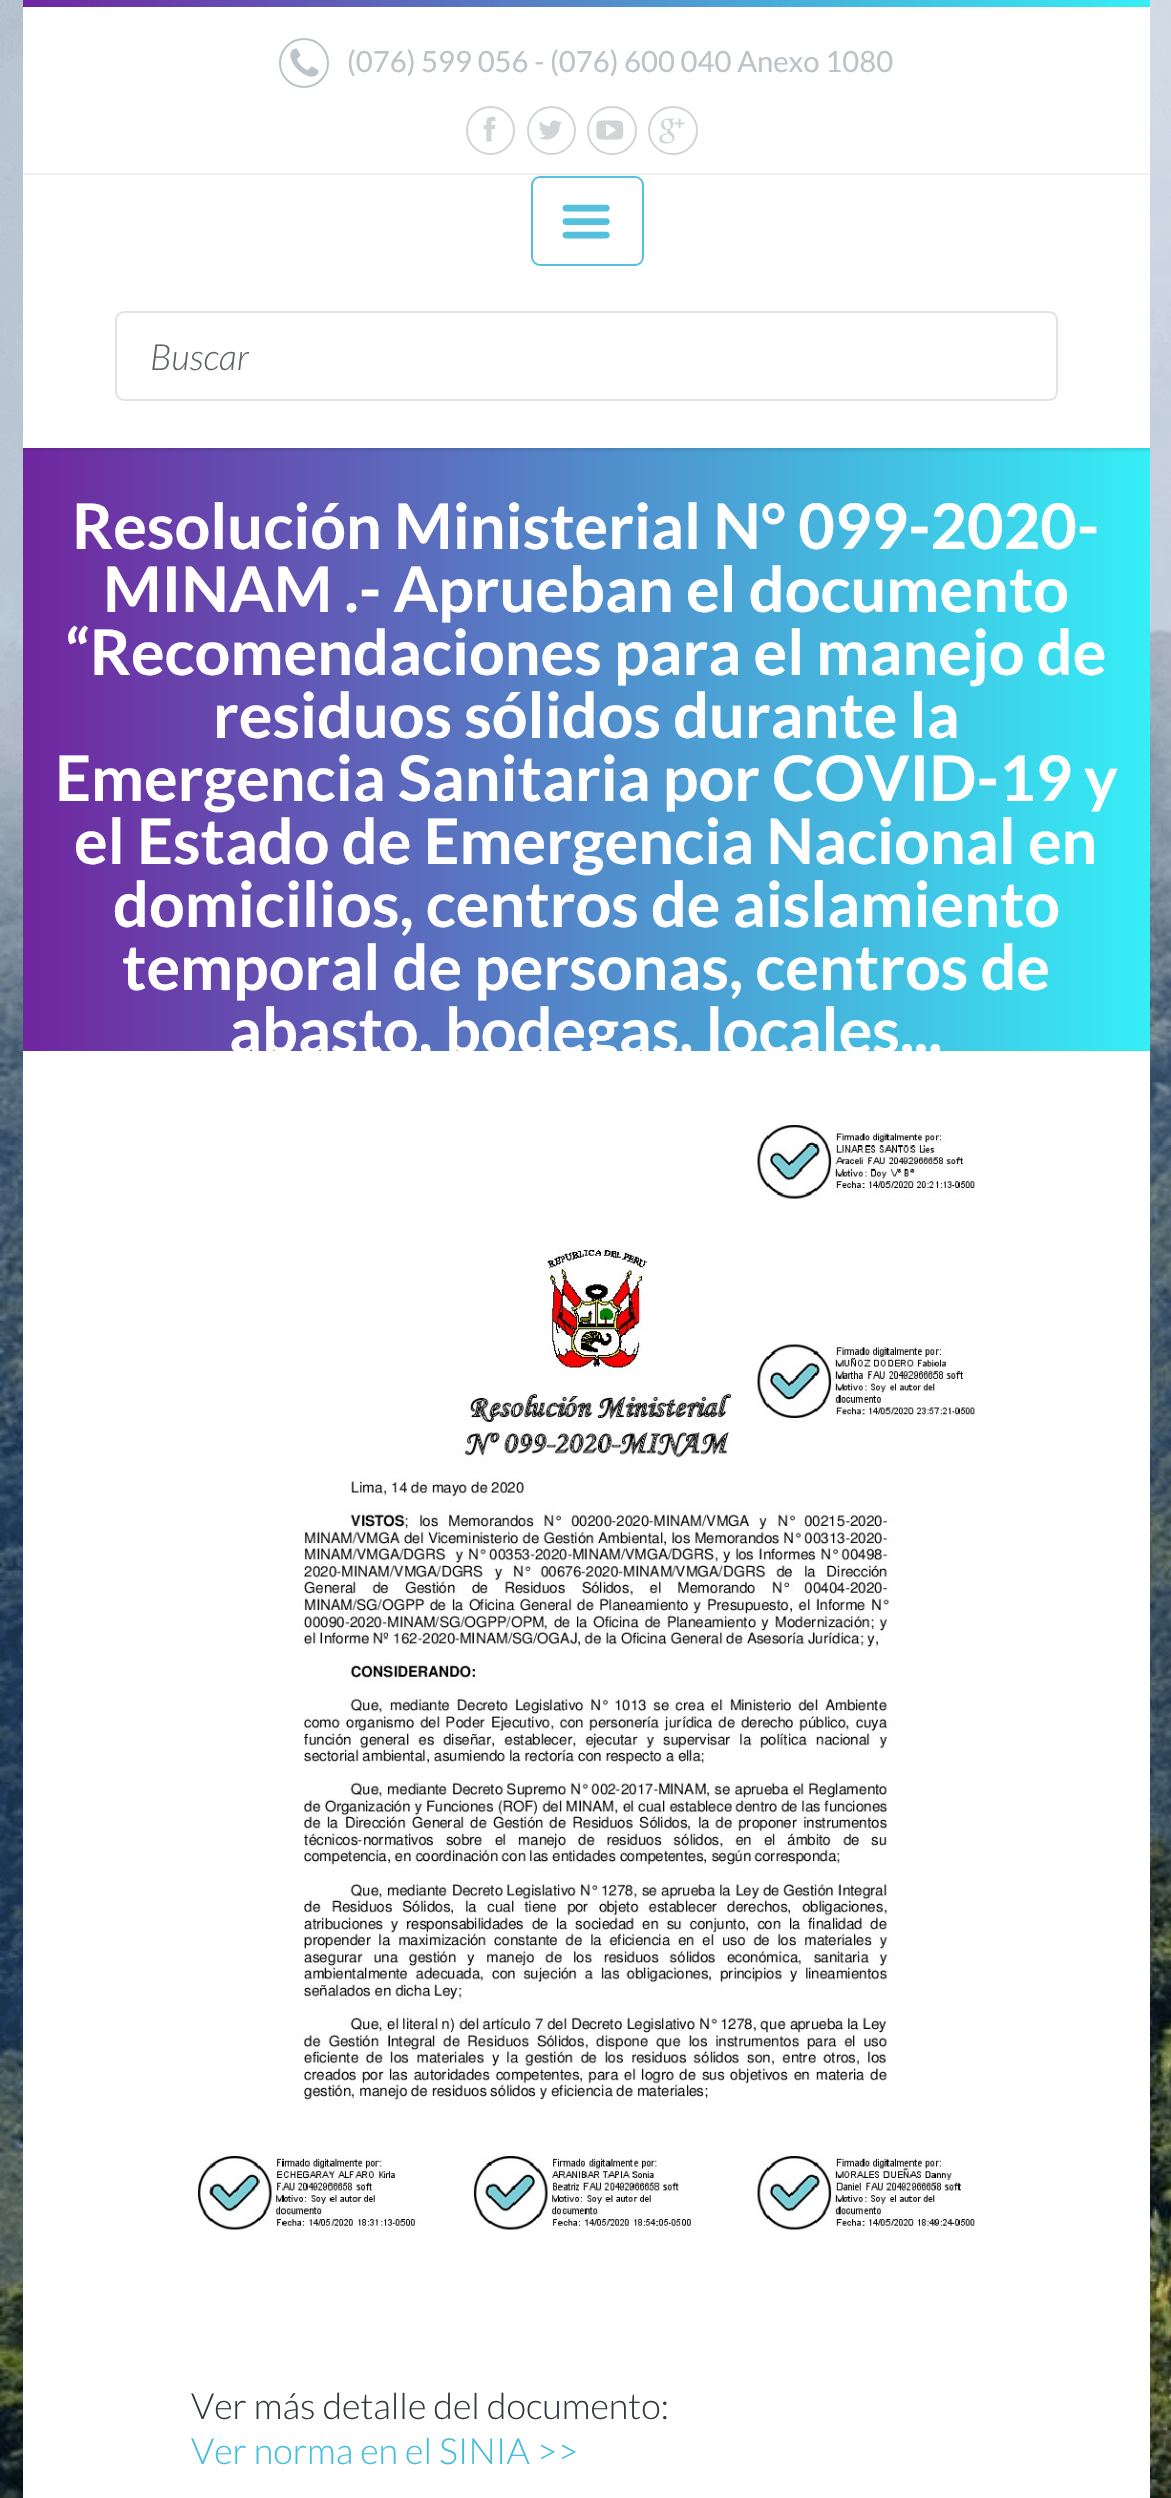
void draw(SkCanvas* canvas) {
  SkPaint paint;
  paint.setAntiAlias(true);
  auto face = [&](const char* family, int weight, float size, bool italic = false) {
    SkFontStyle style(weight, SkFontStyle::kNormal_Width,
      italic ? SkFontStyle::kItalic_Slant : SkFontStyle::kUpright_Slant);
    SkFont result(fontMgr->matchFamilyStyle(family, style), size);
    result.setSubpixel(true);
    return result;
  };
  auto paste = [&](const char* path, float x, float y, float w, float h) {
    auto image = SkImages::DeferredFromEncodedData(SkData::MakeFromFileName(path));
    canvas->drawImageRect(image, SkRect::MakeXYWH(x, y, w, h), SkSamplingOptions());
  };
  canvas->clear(0xffffffff);
  paste("img/1.png", 0, 0, 1171, 2498);
  paint.setColor(0xffffffff);
  canvas->drawRect(SkRect::MakeXYWH(23, 7, 1127, 2491), paint);
  {
    const SkColor colors[] = {0xff70269f, 0xff35eef6};
    const float stops[] = {0, 1};
    const SkPoint ends[] = {{23, 3.4f}, {1150, 3.4f}};
    paint.setShader(SkGradientShader::MakeLinear(ends, colors, stops, 2, SkTileMode::kClamp));
    paint.setAlpha(255);
  }
  canvas->drawRect(SkRect::MakeXYWH(23, 0, 1127, 7), paint);
  paint.setStroke(true);
  paint.setStrokeWidth(2);
  paint.setShader(nullptr);
  paint.setColor(0xffbdc3c7);
  canvas->drawCircle(304, 63, 24, paint);
  paste("img/2.png", 290, 48, 29, 29);
  paint.setColor(0xffd1d5d8);
  canvas->drawCircle(490.5f, 130.5f, 23.5f, paint);
  paste("img/3.png", 483, 116, 13, 26);
  canvas->drawCircle(551.5f, 130.5f, 23.5f, paint);
  paste("img/4.png", 539, 120, 23, 20);
  canvas->drawRoundRect(SkRect::MakeXYWH(588, 107, 48, 47), 23.5f, 23.5f, paint);
  paste("img/5.png", 596, 120, 28, 20);
  canvas->drawRoundRect(SkRect::MakeXYWH(649, 107, 48, 47), 23.5f, 23.5f, paint);
  paste("img/6.png", 659, 118, 26, 26);
  paint.setStroke(false);
  paint.setColor(0xffecf0f1);
  canvas->drawRect(SkRect::MakeXYWH(23, 173, 1127, 2), paint);
  paint.setStroke(true);
  paint.setColor(0xff55c0db);
  canvas->drawRoundRect(SkRect::MakeXYWH(532, 177, 111, 88), 8, 8, paint);
  paste("img/7.png", 562, 204, 48, 35);
  paint.setColor(0xffe1e4e6);
  canvas->drawRoundRect(SkRect::MakeXYWH(116, 312, 941, 88), 8, 8, paint);
  paint.setStroke(false);
  {
    const SkColor colors[] = {0xff70269f, 0xff35eef6};
    const float stops[] = {0, 1};
    const SkPoint ends[] = {{23, 749}, {1150, 749}};
    paint.setShader(SkGradientShader::MakeLinear(ends, colors, stops, 2, SkTileMode::kClamp));
    paint.setAlpha(255);
  }
  canvas->drawRect(SkRect::MakeXYWH(23, 448, 1127, 603), paint);
  paste("img/8.png", 22, 448, 1128, 4);
  paste("img/9.png", 198, 1125, 779, 1105);
  auto f0 = face("Lato", 400, 29.25f);
  paint.setShader(nullptr);
  paint.setColor(0xffbdc3c7);
  canvas->drawString("(076) 599 056 - (076) 600 040 Anexo 1080", 347, 72, f0, paint);
  auto f1 = face("Lato", 300, 36, true);
  paint.setColor(0xff606366);
  canvas->drawString("Buscar", 150, 370, f1, paint);
  auto f2 = face("Lato", 700, 63);
  paint.setColor(0xffffffff);
  {
    const struct { const char* s; float x, y; } items[] = {
      {"Resolución Ministerial N° 099-2020-", 72, 549},
      {"MINAM .- Aprueban el documento", 103, 612},
      {"“Recomendaciones para el manejo de", 65, 675},
      {"residuos sólidos durante la", 213, 738},
      {"Emergencia Sanitaria por COVID-19 y", 55, 801},
      {"el Estado de Emergencia Nacional en", 74, 864},
      {"domicilios, centros de aislamiento", 113, 927},
      {"temporal de personas, centros de", 122, 990},
    };
    for (auto [s, x, y] : items) {
      canvas->drawString(s, x, y, f2, paint);
    }
  }
  canvas->save();
  canvas->clipRect(SkRect::MakeXYWH(23, 448, 1127, 603));
  canvas->drawString("abasto, bodegas, locales...", 229, 1053, f2, paint);
  canvas->restore();
  auto f3 = face("Lato", 300, 36);
  paint.setColor(0xff34383d);
  canvas->drawString("Ver más detalle del documento:", 191, 2419, f3, paint);
  paint.setColor(0xff41bedd);
  canvas->drawString("Ver norma en el SINIA >>", 191, 2464, f3, paint);
}
